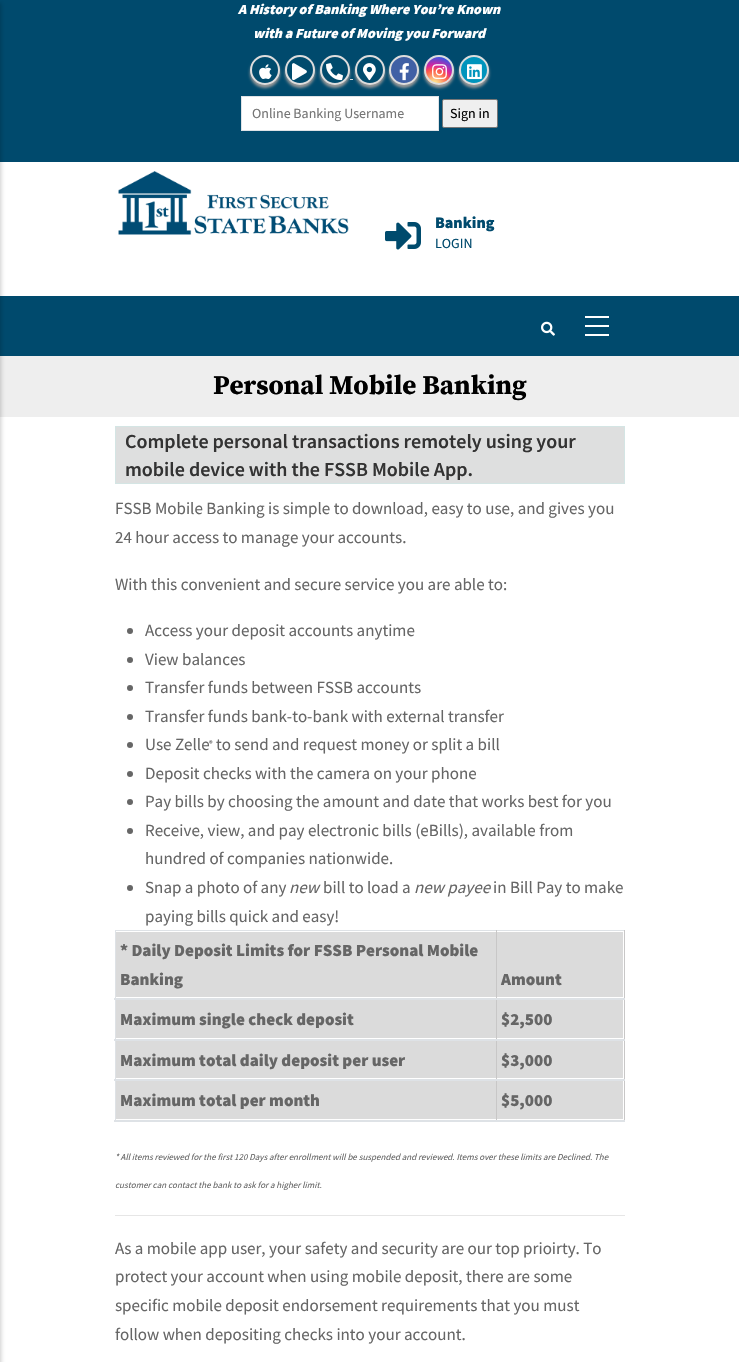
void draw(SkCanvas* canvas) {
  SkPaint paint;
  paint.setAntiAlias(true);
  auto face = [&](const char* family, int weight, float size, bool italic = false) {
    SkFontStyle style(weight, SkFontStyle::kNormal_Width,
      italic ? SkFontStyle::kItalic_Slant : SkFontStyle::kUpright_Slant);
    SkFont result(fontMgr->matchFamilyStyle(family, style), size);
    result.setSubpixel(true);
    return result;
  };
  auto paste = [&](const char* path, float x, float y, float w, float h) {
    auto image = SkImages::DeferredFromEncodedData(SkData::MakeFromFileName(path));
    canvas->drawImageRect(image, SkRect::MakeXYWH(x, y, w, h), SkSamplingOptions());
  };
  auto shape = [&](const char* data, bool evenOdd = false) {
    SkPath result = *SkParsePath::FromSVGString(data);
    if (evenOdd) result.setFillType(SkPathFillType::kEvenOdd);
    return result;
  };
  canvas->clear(0xffffffff);
  {
    const struct { float x, y, w, h; SkColor color; } items[] = {
      {0, 296, 739, 60, 0xff004a6d},
      {0, 0, 739, 162, 0xff004a6d},
      {0, 356, 739, 61, 0xffeeeeee},
    };
    for (auto [x, y, w, h, color] : items) {
      paint.setColor(color);
      canvas->drawRect(SkRect::MakeXYWH(x, y, w, h), paint);
    }
  }
  paint.setColor(0x33000000);
  paint.setMaskFilter(SkMaskFilter::MakeBlur(kNormal_SkBlurStyle, 2));
  canvas->drawRect(SkRect::MakeXYWH(-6, 3, 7, 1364), paint);
  paint.setMaskFilter(nullptr);
  paste("img/1.png", 541, 321, 14, 15);
  {
    const struct { float x, y, w, h; SkColor color; } items[] = {
      {585, 316, 24, 2, 0xffffffff},
      {585, 325, 24, 2, 0xffffffff},
      {585, 334, 24, 2, 0xffffffff},
    };
    for (auto [x, y, w, h, color] : items) {
      paint.setColor(color);
      canvas->drawRect(SkRect::MakeXYWH(x, y, w, h), paint);
    }
  }
  paint.setColor(0xff999999);
  paint.setMaskFilter(SkMaskFilter::MakeBlur(kNormal_SkBlurStyle, 1.5f));
  canvas->drawRoundRect(SkRect::MakeXYWH(250, 58, 30, 30), 15, 15, paint);
  paint.setMaskFilter(nullptr);
  paint.setColor(0xff004b6d);
  canvas->drawCircle(265, 70, 14, paint);
  paint.setStroke(true);
  paint.setStrokeWidth(2);
  paint.setColor(0xffdddddd);
  canvas->drawCircle(265, 70, 14, paint);
  paste("img/2.png", 259, 64, 13, 15);
  paint.setStroke(false);
  paint.setColor(0xff999999);
  paint.setMaskFilter(SkMaskFilter::MakeBlur(kNormal_SkBlurStyle, 1.5f));
  canvas->drawRoundRect(SkRect::MakeXYWH(285, 58, 30, 30), 15, 15, paint);
  paint.setMaskFilter(nullptr);
  paint.setColor(0xff004b6d);
  canvas->drawCircle(300, 70, 14, paint);
  paint.setStroke(true);
  paint.setColor(0xffdddddd);
  canvas->drawCircle(300, 70, 14, paint);
  paste("img/3.png", 292, 63, 15, 18);
  paint.setStroke(false);
  paint.setColor(0xff999999);
  paint.setMaskFilter(SkMaskFilter::MakeBlur(kNormal_SkBlurStyle, 1.5f));
  canvas->drawRoundRect(SkRect::MakeXYWH(320, 58, 30, 30), 15, 15, paint);
  paint.setMaskFilter(nullptr);
  paint.setColor(0xff004b6d);
  canvas->drawCircle(335, 70, 14, paint);
  paint.setStroke(true);
  paint.setColor(0xffdddddd);
  canvas->drawCircle(335, 70, 14, paint);
  paste("img/4.png", 326, 63, 17, 18);
  paint.setStroke(false);
  paint.setColor(0xffe0e0e0);
  canvas->drawRect(SkRect::MakeXYWH(350, 79, 3, 1), paint);
  paint.setColor(0xff999999);
  paint.setMaskFilter(SkMaskFilter::MakeBlur(kNormal_SkBlurStyle, 1.5f));
  canvas->drawRoundRect(SkRect::MakeXYWH(355, 58, 30, 30), 15, 15, paint);
  paint.setMaskFilter(nullptr);
  paint.setColor(0xff004b6d);
  canvas->drawCircle(370, 70, 14, paint);
  paint.setStroke(true);
  paint.setColor(0xffdddddd);
  canvas->drawCircle(370, 70, 14, paint);
  paste("img/5.png", 363, 63, 13, 18);
  paint.setStroke(false);
  paint.setColor(0xff999999);
  paint.setMaskFilter(SkMaskFilter::MakeBlur(kNormal_SkBlurStyle, 1.5f));
  canvas->drawRoundRect(SkRect::MakeXYWH(389, 58, 30, 30), 15, 15, paint);
  paint.setMaskFilter(nullptr);
  paint.setColor(0xff4060a5);
  canvas->drawCircle(404, 70, 14, paint);
  paint.setStroke(true);
  paint.setColor(0xffdddddd);
  canvas->drawCircle(404, 70, 14, paint);
  paste("img/6.png", 399, 63, 10, 18);
  paint.setStroke(false);
  paint.setColor(0xff999999);
  paint.setMaskFilter(SkMaskFilter::MakeBlur(kNormal_SkBlurStyle, 1.5f));
  canvas->drawRoundRect(SkRect::MakeXYWH(424, 58, 30, 30), 15, 15, paint);
  paint.setMaskFilter(nullptr);
  canvas->save();
  canvas->clipPath(shape("M439 55C447.5 55 454 61.5 454 70C454 78.5 447.5 85 439 85C430.5 85 424 78.5 424 70C424 61.5 430.5 55 439 55Z"), true);
  {
    const SkColor colors[] = {0xfffdf497, 0xfffdf497, 0xfffd5949, 0xffd6249f, 0xff285aeb};
    const float stops[] = {0, 0.05f, 0.45f, 0.6f, 0.9f};
    paint.setShader(SkGradientShader::MakeRadial({434, 85}, 33, colors, stops, 5, SkTileMode::kClamp));
    paint.setAlpha(255);
  }
  canvas->drawRect(SkRect::MakeXYWH(426, 57, 26, 26), paint);
  canvas->restore();
  paint.setStroke(true);
  paint.setShader(nullptr);
  paint.setColor(0xffdddddd);
  canvas->drawCircle(439, 70, 14, paint);
  paste("img/7.png", 432, 64, 15, 16);
  paint.setStroke(false);
  paint.setColor(0xff999999);
  paint.setMaskFilter(SkMaskFilter::MakeBlur(kNormal_SkBlurStyle, 1.5f));
  canvas->drawRoundRect(SkRect::MakeXYWH(459, 58, 30, 30), 15, 15, paint);
  paint.setMaskFilter(nullptr);
  paint.setColor(0xff0094bc);
  canvas->drawCircle(474, 70, 14, paint);
  paint.setStroke(true);
  paint.setColor(0xffdddddd);
  canvas->drawCircle(474, 70, 14, paint);
  paste("img/8.png", 467, 64, 15, 16);
  paint.setStroke(false);
  paint.setColor(0xffffffff);
  canvas->drawRect(SkRect::MakeXYWH(241.5f, 96.5f, 197, 34), paint);
  paint.setStroke(true);
  paint.setStrokeWidth(1);
  paint.setColor(0xffdee2e6);
  canvas->drawRect(SkRect::MakeXYWH(241.5f, 96.5f, 197, 34), paint);
  paint.setStroke(false);
  paint.setColor(0xffefefef);
  canvas->drawRoundRect(SkRect::MakeXYWH(442.5f, 99.5f, 55, 28), 1.5f, 1.5f, paint);
  paint.setStroke(true);
  paint.setColor(0xff767676);
  canvas->drawRoundRect(SkRect::MakeXYWH(442.5f, 99.5f, 55, 28), 1.5f, 1.5f, paint);
  paste("img/9.png", 118, 171, 231, 64);
  paste("img/10.png", 385, 222, 36, 28);
  paint.setStroke(false);
  paint.setColor(0xffdedfdf);
  canvas->drawRect(SkRect::MakeXYWH(115.5f, 426.5f, 509, 57), paint);
  paint.setStroke(true);
  paint.setColor(0xffd4e5e4);
  canvas->drawRect(SkRect::MakeXYWH(115.5f, 426.5f, 509, 57), paint);
  paint.setStroke(false);
  paint.setColor(0xff666666);
  canvas->drawCircle(130, 631, 3, paint);
  canvas->drawCircle(130, 660, 3, paint);
  canvas->drawCircle(130, 688, 3, paint);
  canvas->drawCircle(130, 717, 3, paint);
  canvas->drawCircle(130, 745, 3, paint);
  canvas->drawCircle(130, 774, 3, paint);
  canvas->drawCircle(130, 802, 3, paint);
  canvas->drawCircle(130, 831, 3, paint);
  canvas->drawCircle(130, 888, 3, paint);
  {
    const struct { float x, y, w, h; SkColor color; } items[] = {
      {115, 930, 510, 1, 0xffdee2e6},
      {115, 930, 1, 192, 0xffdee2e6},
      {116, 932, 380, 65, 0xffdbdbdb},
      {497, 932, 126, 65, 0xffdbdbdb},
      {496, 930, 1, 191, 0xffc8c7c7},
      {624, 930, 1, 191, 0xffc8c7c7},
      {114, 998, 511, 2, 0xffdee2e6},
      {116, 1000, 380, 38, 0xffdbdbdb},
      {497, 1000, 126, 38, 0xffdbdbdb},
      {114, 1039, 511, 2, 0xffdee2e6},
      {116, 1041, 380, 37, 0xffdbdbdb},
      {497, 1041, 126, 37, 0xffdbdbdb},
      {114, 1079, 511, 2, 0xffdee2e6},
      {116, 1081, 380, 38, 0xffdbdbdb},
      {497, 1081, 126, 38, 0xffdbdbdb},
      {114, 1120, 511, 2, 0xffdee2e6},
      {115, 1215, 510, 1, 0xffe6e6e6},
    };
    for (auto [x, y, w, h, color] : items) {
      paint.setColor(color);
      canvas->drawRect(SkRect::MakeXYWH(x, y, w, h), paint);
    }
  }
  auto f0 = face("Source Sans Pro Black", 900, 14, true);
  paint.setColor(0xffffffff);
  canvas->drawString("A History of Banking Where You’re Known", 238, 14, f0, paint);
  canvas->drawString("with a Future of Moving you Forward", 253, 38, f0, paint);
  auto f1 = face("Source Sans Pro", 400, 14);
  paint.setColor(0xff757575);
  canvas->drawString("Online Banking Username", 252, 118, f1, paint);
  paint.setColor(0xff000000);
  canvas->drawString("Sign in", 450, 118, f1, paint);
  auto f2 = face("Source Sans Pro Black", 900, 16);
  paint.setColor(0xff004a6d);
  canvas->drawString("Banking", 435, 228, f2, paint);
  canvas->drawString("LOGIN", 435, 248, f1, paint);
  auto f3 = face("Source Serif Pro", 700, 27);
  paint.setColor(0xff000000);
  canvas->drawString("Personal Mobile Banking", 213, 394, f3, paint);
  auto f4 = face("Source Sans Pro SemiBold", 600, 20);
  paint.setColor(0xff333333);
  canvas->drawString("Complete personal transactions remotely using your", 125, 448, f4, paint);
  canvas->drawString("mobile device with the FSSB Mobile App.", 125, 476, f4, paint);
  auto f5 = face("Source Sans Pro", 400, 17);
  paint.setColor(0xff666666);
  {
    const struct { const char* s; float x, y; } items[] = {
      {"FSSB Mobile Banking is simple to download, easy to use, and gives you", 115, 514},
      {"24 hour access to manage your accounts.", 115, 543},
      {"With this convenient and secure service you are able to:", 115, 590},
      {"Access your deposit accounts anytime", 145, 636},
      {"View balances", 145, 665},
      {"Transfer funds between FSSB accounts", 145, 693},
      {"Transfer funds bank-to-bank with external transfer", 145, 722},
      {"Use Zelle", 145, 750},
    };
    for (auto [s, x, y] : items) {
      canvas->drawString(s, x, y, f5, paint);
    }
  }
  auto f6 = face("Source Sans Pro SemiBold", 600, 8);
  canvas->drawString("®", 209, 746, f6, paint);
  {
    const struct { const char* s; float x, y; } items[] = {
      {"to send and request money or split a bill", 216, 750},
      {"Deposit checks with the camera on your phone", 145, 779},
      {"Pay bills by choosing the amount and date that works best for you", 145, 807},
      {"Receive, view, and pay electronic bills (eBills), available from", 145, 836},
      {"hundred of companies nationwide.", 145, 864},
      {"Snap a photo of any", 145, 893},
    };
    for (auto [s, x, y] : items) {
      canvas->drawString(s, x, y, f5, paint);
    }
  }
  auto f7 = face("Source Sans Pro", 400, 17, true);
  canvas->drawString("new", 289, 893, f7, paint);
  canvas->drawString("bill to load a", 323, 893, f5, paint);
  canvas->drawString("new payee", 414, 893, f7, paint);
  canvas->drawString("in Bill Pay to make", 493, 893, f5, paint);
  canvas->drawString("paying bills quick and easy!", 145, 922, f5, paint);
  auto f8 = face("Source Sans Pro Black", 900, 17);
  {
    const struct { const char* s; float x, y; } items[] = {
      {"* Daily Deposit Limits for FSSB Personal Mobile", 120, 956},
      {"Banking", 120, 985},
      {"Amount", 501, 985},
      {"Maximum single check deposit", 120, 1025},
      {"$2,500", 501, 1025},
      {"Maximum total daily deposit per user", 120, 1066},
      {"$3,000", 501, 1066},
      {"Maximum total per month", 120, 1106},
      {"$5,000", 501, 1106},
    };
    for (auto [s, x, y] : items) {
      canvas->drawString(s, x, y, f8, paint);
    }
  }
  auto f9 = face("Source Sans Pro", 400, 9, true);
  canvas->drawString("* All items reviewed for the first 120 Days after enrollment will be suspended and reviewed. Items over these limits are Declined. The", 115, 1160, f9, paint);
  canvas->drawString("customer can contact the bank to ask for a higher limit.", 115, 1188, f9, paint);
  {
    const struct { const char* s; float x, y; } items[] = {
      {"As a mobile app user, your safety and security are our top prioirty. To", 115, 1254},
      {"protect your account when using mobile deposit, there are some", 115, 1282},
      {"specific mobile deposit endorsement requirements that you must", 115, 1311},
      {"follow when depositing checks into your account.", 115, 1340},
    };
    for (auto [s, x, y] : items) {
      canvas->drawString(s, x, y, f5, paint);
    }
  }
}
